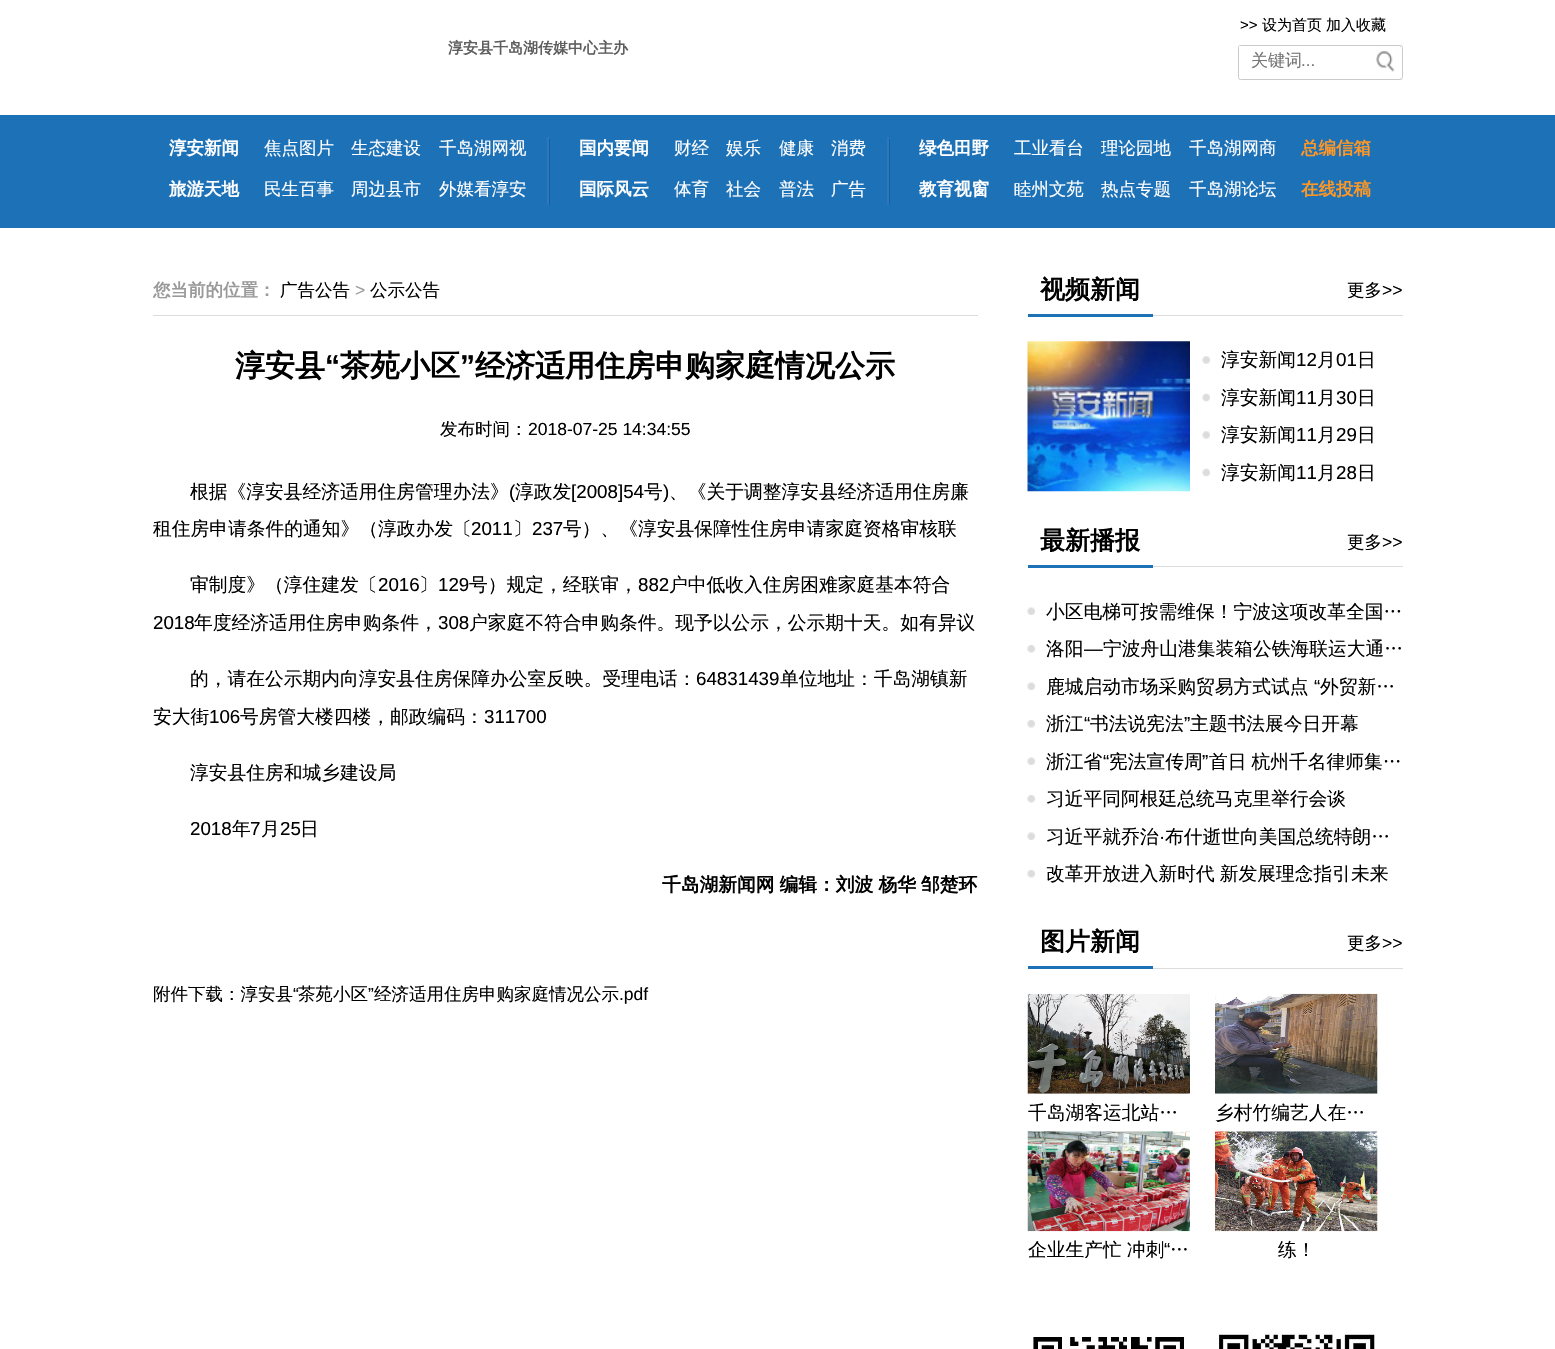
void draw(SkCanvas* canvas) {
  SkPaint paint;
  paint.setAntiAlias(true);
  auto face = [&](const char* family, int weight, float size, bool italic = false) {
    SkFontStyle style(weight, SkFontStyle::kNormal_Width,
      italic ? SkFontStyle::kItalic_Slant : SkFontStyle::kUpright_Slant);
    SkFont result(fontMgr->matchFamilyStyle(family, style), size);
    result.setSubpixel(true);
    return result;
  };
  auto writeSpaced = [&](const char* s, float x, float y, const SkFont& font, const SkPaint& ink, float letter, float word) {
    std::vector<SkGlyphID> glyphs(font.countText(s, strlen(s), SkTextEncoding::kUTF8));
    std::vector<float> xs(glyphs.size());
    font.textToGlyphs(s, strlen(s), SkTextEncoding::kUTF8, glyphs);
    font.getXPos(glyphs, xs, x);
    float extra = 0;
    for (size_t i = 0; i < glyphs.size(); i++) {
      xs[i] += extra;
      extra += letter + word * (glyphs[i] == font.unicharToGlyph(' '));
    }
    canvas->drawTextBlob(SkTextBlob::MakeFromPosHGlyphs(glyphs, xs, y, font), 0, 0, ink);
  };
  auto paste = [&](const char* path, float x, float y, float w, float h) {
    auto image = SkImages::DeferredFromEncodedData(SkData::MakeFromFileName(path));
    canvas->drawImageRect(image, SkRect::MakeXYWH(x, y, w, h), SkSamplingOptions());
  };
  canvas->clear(0xffffffff);
  paint.setStroke(true);
  paint.setStrokeWidth(1);
  paint.setColor(0xffcacaca);
  canvas->drawRoundRect(SkRect::MakeXYWH(1238.5f, 45.5f, 164, 34), 2, 2, paint);
  paint.setStroke(false);
  paint.setColor(0xffffffff);
  canvas->drawRect(SkRect::MakeXYWH(1239, 46, 1, 1), paint);
  paste("img/1.png", 1376, 46, 25, 33);
  paint.setColor(0xff1d71b7);
  canvas->drawRect(SkRect::MakeXYWH(0, 115, 1555, 113), paint);
  paste("img/2.png", 547, 137, 3, 68);
  paste("img/2.png", 887, 137, 3, 68);
  {
    const struct { float x, y, w, h; SkColor color; } items[] = {
      {153, 315, 825, 1, 0xffdcdcdc},
      {1153, 315, 250, 1, 0xffdcdcdc},
      {1028, 314, 125, 3, 0xff1d71b7},
    };
    for (auto [x, y, w, h, color] : items) {
      paint.setColor(color);
      canvas->drawRect(SkRect::MakeXYWH(x, y, w, h), paint);
    }
  }
  paste("img/3.png", 1027, 341, 163, 151);
  paste("img/4.png", 1202, 356, 8, 8);
  paste("img/5.png", 1202, 393, 8, 9);
  paste("img/4.png", 1202, 431, 8, 8);
  paste("img/5.png", 1202, 468, 8, 9);
  paint.setColor(0xffdcdcdc);
  canvas->drawRect(SkRect::MakeXYWH(1153, 566, 250, 1), paint);
  paint.setColor(0xff1d71b7);
  canvas->drawRect(SkRect::MakeXYWH(1028, 565, 125, 3), paint);
  paste("img/6.png", 1027, 607, 8, 8);
  paste("img/7.png", 1027, 645, 8, 8);
  paste("img/6.png", 1027, 682, 8, 8);
  paste("img/7.png", 1027, 720, 8, 8);
  paste("img/6.png", 1027, 757, 8, 8);
  paste("img/7.png", 1027, 795, 8, 8);
  paste("img/6.png", 1027, 832, 8, 8);
  paste("img/7.png", 1027, 870, 8, 8);
  paint.setColor(0xffdcdcdc);
  canvas->drawRect(SkRect::MakeXYWH(1153, 968, 250, 1), paint);
  paint.setColor(0xff1d71b7);
  canvas->drawRect(SkRect::MakeXYWH(1028, 966, 125, 3), paint);
  paste("img/8.png", 1027, 993, 163, 101);
  paste("img/9.png", 1215, 993, 163, 101);
  paste("img/10.png", 1027, 1131, 163, 101);
  paste("img/11.png", 1215, 1131, 163, 101);
  paste("img/12.png", 1033, 1337, 153, 12);
  paste("img/13.png", 1218, 1332, 157, 17);
  auto f0 = face("WenQuanYi Zen Hei", 700, 15);
  paint.setColor(0xff5e5e5e);
  canvas->drawString("淳安县千岛湖传媒中心主办", 448, 53, f0, paint);
  auto f1 = face("Liberation Sans", 400, 15);
  paint.setColor(0xff000000);
  canvas->drawString(">>", 1240, 30, f1, paint);
  auto f2 = face("WenQuanYi Zen Hei", 500, 15);
  canvas->drawString("设为首页", 1262, 30, f2, paint);
  canvas->drawString("加入收藏", 1326, 30, f2, paint);
  auto f3 = face("WenQuanYi Zen Hei", 500, 17);
  paint.setColor(0xff757575);
  canvas->drawString("关键词", 1251, 66, f3, paint);
  auto f4 = face("Liberation Sans", 400, 17);
  canvas->drawString("...", 1301, 66, f4, paint);
  auto f5 = face("WenQuanYi Zen Hei", 700, 17.5f);
  paint.setColor(0xffffffff);
  canvas->drawString("淳安新闻", 169, 154, f5, paint);
  canvas->drawString("旅游天地", 169, 195, f5, paint);
  auto f6 = face("WenQuanYi Zen Hei", 500, 17.5f);
  {
    const struct { const char* s; float x, y; } items[] = {
      {"焦点图片", 264, 154},
      {"生态建设", 351, 154},
      {"千岛湖网视", 439, 154},
      {"民生百事", 264, 195},
      {"周边县市", 351, 195},
      {"外媒看淳安", 439, 195},
    };
    for (auto [s, x, y] : items) {
      canvas->drawString(s, x, y, f6, paint);
    }
  }
  canvas->drawString("国内要闻", 579, 154, f5, paint);
  canvas->drawString("国际风云", 579, 195, f5, paint);
  {
    const struct { const char* s; float x, y; } items[] = {
      {"财经", 674, 154},
      {"娱乐", 726, 154},
      {"健康", 779, 154},
      {"消费", 831, 154},
      {"体育", 674, 195},
      {"社会", 726, 195},
      {"普法", 779, 195},
      {"广告", 831, 195},
    };
    for (auto [s, x, y] : items) {
      canvas->drawString(s, x, y, f6, paint);
    }
  }
  canvas->drawString("绿色田野", 919, 154, f5, paint);
  canvas->drawString("教育视窗", 919, 195, f5, paint);
  {
    const struct { const char* s; float x, y; } items[] = {
      {"工业看台", 1014, 154},
      {"理论园地", 1101, 154},
      {"千岛湖网商", 1189, 154},
      {"睦州文苑", 1014, 195},
      {"热点专题", 1101, 195},
      {"千岛湖论坛", 1189, 195},
    };
    for (auto [s, x, y] : items) {
      canvas->drawString(s, x, y, f6, paint);
    }
  }
  paint.setColor(0xffff9724);
  canvas->drawString("总编信箱", 1301, 154, f5, paint);
  canvas->drawString("在线投稿", 1301, 195, f5, paint);
  paint.setColor(0xff9a9a9a);
  canvas->drawString("您当前的位置：", 153, 296, f5, paint);
  paint.setColor(0xff000000);
  canvas->drawString("广告公告", 280, 296, f6, paint);
  auto f7 = face("Liberation Sans", 400, 17.5f);
  paint.setColor(0xff9a9a9a);
  canvas->drawString(">", 355, 296, f7, paint);
  paint.setColor(0xff000000);
  canvas->drawString("公示公告", 370, 296, f6, paint);
  auto f8 = face("WenQuanYi Zen Hei", 700, 30);
  canvas->drawString("淳安县", 235, 376, f8, paint);
  auto f9 = face("Liberation Sans", 700, 30);
  canvas->drawString("“", 325, 376, f9, paint);
  canvas->drawString("茶苑小区", 340, 376, f8, paint);
  canvas->drawString("”", 460, 376, f9, paint);
  canvas->drawString("经济适用住房申购家庭情况公示", 475, 376, f8, paint);
  canvas->drawString("发布时间：", 440, 435, f6, paint);
  canvas->drawString("2018-07-25 14:34:55", 528, 435, f7, paint);
  auto f10 = face("WenQuanYi Zen Hei", 500, 18.75f);
  canvas->drawString("根据《淳安县经济适用住房管理办法》", 190, 498, f10, paint);
  auto f11 = face("Liberation Sans", 400, 18.75f);
  canvas->drawString("(", 509, 498, f11, paint);
  canvas->drawString("淳政发", 515, 498, f10, paint);
  canvas->drawString("[2008]54", 571, 498, f11, paint);
  canvas->drawString("号", 644, 498, f10, paint);
  canvas->drawString(")", 663, 498, f11, paint);
  canvas->drawString("、《关于调整淳安县经济适用住房廉", 669, 498, f10, paint);
  canvas->drawString("租住房申请条件的通知》（淳政办发〔", 153, 535, f10, paint);
  canvas->drawString("2011", 471, 535, f11, paint);
  canvas->drawString("〕", 513, 535, f10, paint);
  canvas->drawString("237", 532, 535, f11, paint);
  canvas->drawString("号）、《淳安县保障性住房申请家庭资格审核联", 563, 535, f10, paint);
  canvas->drawString("审制度》（淳住建发〔", 190, 591, f10, paint);
  canvas->drawString("2016", 378, 591, f11, paint);
  canvas->drawString("〕", 419, 591, f10, paint);
  canvas->drawString("129", 438, 591, f11, paint);
  canvas->drawString("号）规定，经联审，", 469, 591, f10, paint);
  canvas->drawString("882", 638, 591, f11, paint);
  canvas->drawString("户中低收入住房困难家庭基本符合", 669, 591, f10, paint);
  canvas->drawString("2018", 153, 629, f11, paint);
  canvas->drawString("年度经济适用住房申购条件，", 194, 629, f10, paint);
  canvas->drawString("308", 438, 629, f11, paint);
  canvas->drawString("户家庭不符合申购条件。现予以公示，公示期十天。如有异议", 469, 629, f10, paint);
  canvas->drawString("的，请在公示期内向淳安县住房保障办公室反映。受理电话：", 190, 685, f10, paint);
  canvas->drawString("64831439", 696, 685, f11, paint);
  canvas->drawString("单位地址：千岛湖镇新", 780, 685, f10, paint);
  canvas->drawString("安大街", 153, 723, f10, paint);
  canvas->drawString("106", 209, 723, f11, paint);
  canvas->drawString("号房管大楼四楼，邮政编码：", 240, 723, f10, paint);
  canvas->drawString("311700", 484, 723, f11, paint);
  canvas->drawString("淳安县住房和城乡建设局", 190, 779, f10, paint);
  canvas->drawString("2018", 190, 835, f11, paint);
  canvas->drawString("年", 232, 835, f10, paint);
  canvas->drawString("7", 250, 835, f11, paint);
  canvas->drawString("月", 261, 835, f10, paint);
  canvas->drawString("25", 280, 835, f11, paint);
  canvas->drawString("日", 300, 835, f10, paint);
  auto f12 = face("WenQuanYi Zen Hei", 700, 18.75f);
  writeSpaced("千岛湖新闻网 编辑：刘波 杨华 邹楚环", 662, 891, f12, paint, 0, -0.5f);
  canvas->drawString("附件下载：淳安县", 153, 1000, f6, paint);
  canvas->drawString("“", 293, 1000, f7, paint);
  canvas->drawString("茶苑小区", 298, 1000, f6, paint);
  canvas->drawString("”", 368, 1000, f7, paint);
  canvas->drawString("经济适用住房申购家庭情况公示", 374, 1000, f6, paint);
  canvas->drawString(".pdf", 619, 1000, f7, paint);
  auto f13 = face("WenQuanYi Zen Hei", 700, 25);
  canvas->drawString("视频新闻", 1040, 298, f13, paint);
  canvas->drawString("更多", 1347, 296, f6, paint);
  canvas->drawString(">>", 1382, 296, f7, paint);
  canvas->drawString("淳安新闻", 1221, 366, f10, paint);
  canvas->drawString("12", 1296, 366, f11, paint);
  canvas->drawString("月", 1317, 366, f10, paint);
  canvas->drawString("01", 1336, 366, f11, paint);
  canvas->drawString("日", 1357, 366, f10, paint);
  canvas->drawString("淳安新闻", 1221, 404, f10, paint);
  canvas->drawString("11", 1296, 404, f11, paint);
  canvas->drawString("月", 1317, 404, f10, paint);
  canvas->drawString("30", 1336, 404, f11, paint);
  canvas->drawString("日", 1357, 404, f10, paint);
  canvas->drawString("淳安新闻", 1221, 441, f10, paint);
  canvas->drawString("11", 1296, 441, f11, paint);
  canvas->drawString("月", 1317, 441, f10, paint);
  canvas->drawString("29", 1336, 441, f11, paint);
  canvas->drawString("日", 1357, 441, f10, paint);
  canvas->drawString("淳安新闻", 1221, 479, f10, paint);
  canvas->drawString("11", 1296, 479, f11, paint);
  canvas->drawString("月", 1317, 479, f10, paint);
  canvas->drawString("28", 1336, 479, f11, paint);
  canvas->drawString("日", 1357, 479, f10, paint);
  canvas->drawString("最新播报", 1040, 549, f13, paint);
  canvas->drawString("更多", 1347, 548, f6, paint);
  canvas->drawString(">>", 1382, 548, f7, paint);
  canvas->drawString("小区电梯可按需维保！宁波这项改革全国…", 1046, 618, f10, paint);
  canvas->drawString("洛阳", 1046, 655, f10, paint);
  canvas->drawString("—", 1084, 655, f11, paint);
  canvas->drawString("宁波舟山港集装箱公铁海联运大通…", 1103, 655, f10, paint);
  canvas->drawString("鹿城启动市场采购贸易方式试点", 1046, 693, f10, paint);
  canvas->drawString("“", 1314, 693, f11, paint);
  canvas->drawString("外贸新…", 1320, 693, f10, paint);
  canvas->drawString("浙江", 1046, 730, f10, paint);
  canvas->drawString("“", 1084, 730, f11, paint);
  canvas->drawString("书法说宪法", 1090, 730, f10, paint);
  canvas->drawString("”", 1184, 730, f11, paint);
  canvas->drawString("主题书法展今日开幕", 1190, 730, f10, paint);
  canvas->drawString("浙江省", 1046, 768, f10, paint);
  canvas->drawString("“", 1103, 768, f11, paint);
  canvas->drawString("宪法宣传周", 1109, 768, f10, paint);
  canvas->drawString("”", 1202, 768, f11, paint);
  writeSpaced("首日 杭州千名律师集…", 1209, 768, f10, paint, 0, -0.5f);
  canvas->drawString("习近平同阿根廷总统马克里举行会谈", 1046, 805, f10, paint);
  canvas->drawString("习近平就乔治", 1046, 843, f10, paint);
  canvas->drawString("·", 1159, 843, f11, paint);
  canvas->drawString("布什逝世向美国总统特朗…", 1165, 843, f10, paint);
  writeSpaced("改革开放进入新时代 新发展理念指引未来", 1046, 880, f10, paint, 0, -0.5f);
  canvas->drawString("图片新闻", 1040, 950, f13, paint);
  canvas->drawString("更多", 1347, 949, f6, paint);
  canvas->drawString(">>", 1382, 949, f7, paint);
  canvas->drawString("千岛湖客运北站…", 1028, 1119, f10, paint);
  canvas->drawString("乡村竹编艺人在…", 1215, 1119, f10, paint);
  writeSpaced("企业生产忙 冲刺", 1028, 1256, f10, paint, 0, -0.5f);
  canvas->drawString("“", 1164, 1256, f11, paint);
  canvas->drawString("…", 1170, 1256, f10, paint);
  canvas->drawString("练！", 1278, 1256, f10, paint);
}
